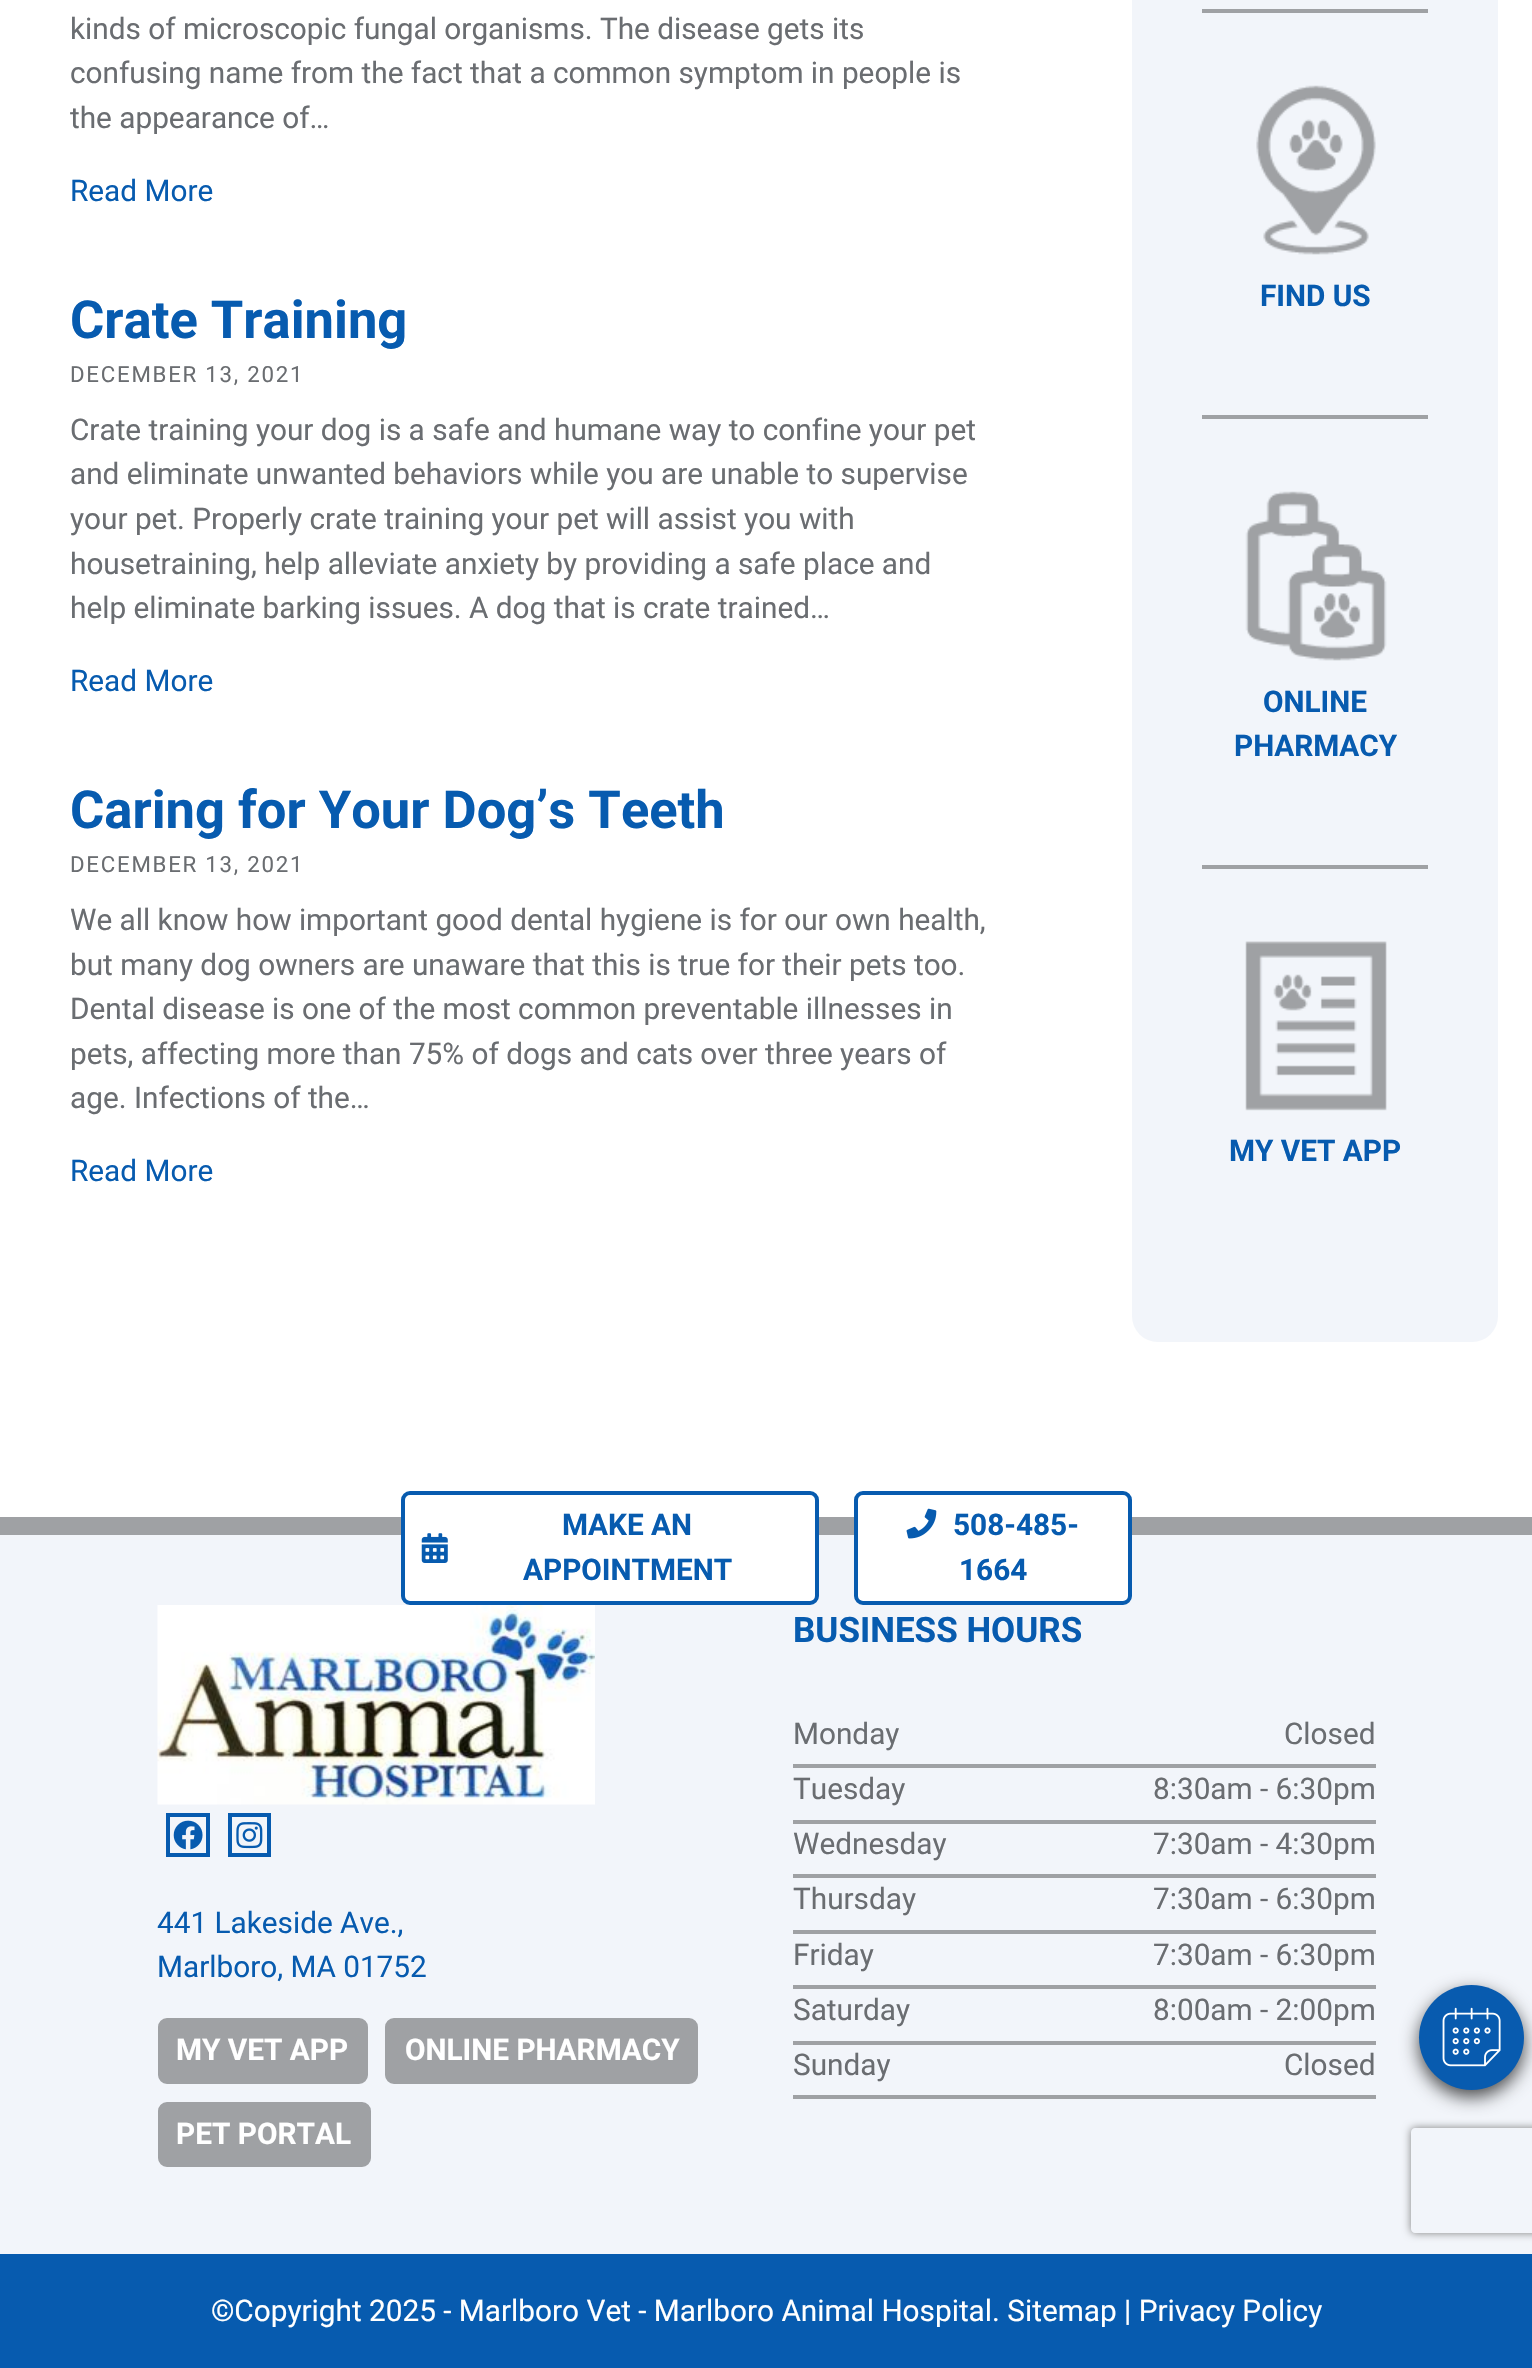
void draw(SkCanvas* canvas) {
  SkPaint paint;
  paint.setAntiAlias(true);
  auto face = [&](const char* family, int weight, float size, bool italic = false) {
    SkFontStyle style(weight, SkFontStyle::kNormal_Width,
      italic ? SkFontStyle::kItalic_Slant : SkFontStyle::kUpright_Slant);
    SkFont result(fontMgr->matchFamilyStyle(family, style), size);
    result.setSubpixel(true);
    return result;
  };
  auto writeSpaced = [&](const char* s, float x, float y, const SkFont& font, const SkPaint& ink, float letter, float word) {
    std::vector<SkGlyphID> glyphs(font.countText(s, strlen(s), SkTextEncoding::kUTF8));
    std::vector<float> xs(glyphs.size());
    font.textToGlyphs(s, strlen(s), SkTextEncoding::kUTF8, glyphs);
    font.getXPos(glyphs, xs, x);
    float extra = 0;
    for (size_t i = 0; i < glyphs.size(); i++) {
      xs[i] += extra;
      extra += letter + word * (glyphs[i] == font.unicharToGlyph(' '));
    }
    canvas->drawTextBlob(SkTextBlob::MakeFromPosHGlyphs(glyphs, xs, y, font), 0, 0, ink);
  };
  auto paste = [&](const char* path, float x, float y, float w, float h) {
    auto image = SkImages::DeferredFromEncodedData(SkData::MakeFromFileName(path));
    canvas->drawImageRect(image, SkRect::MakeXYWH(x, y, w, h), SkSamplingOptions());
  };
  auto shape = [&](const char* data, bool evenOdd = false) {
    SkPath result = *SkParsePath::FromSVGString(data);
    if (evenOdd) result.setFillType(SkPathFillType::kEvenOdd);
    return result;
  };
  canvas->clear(0xffffffff);
  paint.setColor(0xfff2f5fa);
  canvas->drawRoundRect(SkRect::MakeXYWH(1132, -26, 366, 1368), 26, 26, paint);
  paint.setColor(0xff9fa1a4);
  canvas->drawRect(SkRect::MakeXYWH(1202, 9, 226, 4), paint);
  paste("img/1.png", 1256, 85, 120, 170);
  canvas->drawRect(SkRect::MakeXYWH(1202, 415, 226, 4), paint);
  paste("img/2.png", 1245, 491, 142, 170);
  canvas->drawRect(SkRect::MakeXYWH(1202, 865, 226, 4), paint);
  paste("img/3.png", 1245, 941, 142, 170);
  paint.setColor(0xfff2f5fa);
  canvas->drawRect(SkRect::MakeXYWH(0, 1535, 1532, 719), paint);
  paint.setColor(0xff9fa1a4);
  canvas->drawRect(SkRect::MakeXYWH(0, 1517, 1532, 18), paint);
  paint.setColor(0xffffffff);
  canvas->drawRoundRect(SkRect::MakeXYWH(403, 1493, 414, 110), 7, 7, paint);
  paint.setStroke(true);
  paint.setStrokeWidth(4);
  paint.setColor(0xff075baf);
  canvas->drawRoundRect(SkRect::MakeXYWH(403, 1493, 414, 110), 7, 7, paint);
  paste("img/4.png", 421, 1533, 27, 30);
  paint.setStroke(false);
  paint.setColor(0xffffffff);
  canvas->drawRoundRect(SkRect::MakeXYWH(856, 1493, 274, 110), 7, 7, paint);
  paint.setStroke(true);
  paint.setColor(0xff075baf);
  canvas->drawRoundRect(SkRect::MakeXYWH(856, 1493, 274, 110), 7, 7, paint);
  paste("img/5.png", 906, 1508, 31, 31);
  paste("img/6.png", 157, 1605, 438, 200);
  canvas->drawRect(SkRect::MakeXYWH(168, 1815, 40, 40), paint);
  paste("img/7.png", 173, 1820, 30, 30);
  canvas->drawRect(SkRect::MakeXYWH(230, 1815, 39, 40), paint);
  paste("img/8.png", 236, 1822, 27, 27);
  paint.setStroke(false);
  paint.setColor(0xff9fa1a4);
  canvas->drawRoundRect(SkRect::MakeXYWH(159, 2019, 208, 64), 8, 8, paint);
  paint.setStroke(true);
  paint.setStrokeWidth(2);
  canvas->drawRoundRect(SkRect::MakeXYWH(159, 2019, 208, 64), 8, 8, paint);
  paint.setStroke(false);
  canvas->drawRoundRect(SkRect::MakeXYWH(386, 2019, 311, 64), 8, 8, paint);
  paint.setStroke(true);
  canvas->drawRoundRect(SkRect::MakeXYWH(386, 2019, 311, 64), 8, 8, paint);
  paint.setStroke(false);
  canvas->drawRoundRect(SkRect::MakeXYWH(159, 2103, 211, 63), 8, 8, paint);
  paint.setStroke(true);
  canvas->drawRoundRect(SkRect::MakeXYWH(159, 2103, 211, 63), 8, 8, paint);
  paint.setStroke(false);
  {
    const struct { float x, y, w, h; SkColor color; } items[] = {
      {793, 1764, 583, 4, 0xff9fa1a4},
      {793, 1820, 583, 4, 0xff9fa1a4},
      {793, 1874, 583, 4, 0xff9fa1a4},
      {793, 1930, 583, 4, 0xff9fa1a4},
      {793, 1985, 583, 4, 0xff9fa1a4},
      {793, 2041, 583, 4, 0xff9fa1a4},
      {793, 2095, 583, 4, 0xff9fa1a4},
      {0, 2254, 1532, 114, 0xff075baf},
    };
    for (auto [x, y, w, h, color] : items) {
      paint.setColor(color);
      canvas->drawRect(SkRect::MakeXYWH(x, y, w, h), paint);
    }
  }
  paint.setColor(0xb3000000);
  paint.setMaskFilter(SkMaskFilter::MakeBlur(kNormal_SkBlurStyle, 9));
  canvas->drawRoundRect(SkRect::MakeXYWH(1419, 1992, 105, 105), 52.5f, 52.5f, paint);
  paint.setMaskFilter(nullptr);
  paint.setColor(0xff085baf);
  canvas->drawCircle(1471.5f, 2037.5f, 52.5f, paint);
  paste("img/9.png", 1442, 2007, 59, 60);
  canvas->save();
  canvas->clipPath(shape("M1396 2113H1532V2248H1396ZM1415 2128H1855C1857 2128 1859 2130 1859 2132V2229C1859 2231 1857 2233 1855 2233H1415C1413 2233 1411 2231 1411 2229V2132C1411 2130 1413 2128 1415 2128Z", true), true);
  paint.setColor(0xff808080);
  paint.setMaskFilter(SkMaskFilter::MakeBlur(kNormal_SkBlurStyle, 4.5f));
  canvas->drawRoundRect(SkRect::MakeXYWH(1411, 2128, 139, 105), 4, 4, paint);
  paint.setMaskFilter(nullptr);
  canvas->restore();
  auto f0 = face("Roboto", 400, 29.75f);
  paint.setColor(0xff6a6d71);
  {
    const struct { const char* s; float x, y; } items[] = {
      {"kinds of microscopic fungal organisms. The disease gets its", 70, 39},
      {"confusing name from the fact that a common symptom in people is", 70, 83},
      {"the appearance of…", 70, 128},
    };
    for (auto [s, x, y] : items) {
      canvas->drawString(s, x, y, f0, paint);
    }
  }
  paint.setColor(0xff075baf);
  canvas->drawString("Read More", 70, 201, f0, paint);
  auto f1 = face("Roboto", 700, 52.5f);
  canvas->drawString("Crate Training", 70, 338, f1, paint);
  auto f2 = face("Roboto", 400, 22.25f);
  paint.setColor(0xff6a6d71);
  writeSpaced("DECEMBER 13, 2021", 70, 382, f2, paint, 1.75f, 0);
  {
    const struct { const char* s; float x, y; } items[] = {
      {"Crate training your dog is a safe and humane way to confine your pet", 70, 440},
      {"and eliminate unwanted behaviors while you are unable to supervise", 70, 484},
      {"your pet. Properly crate training your pet will assist you with", 70, 529},
      {"housetraining, help alleviate anxiety by providing a safe place and", 70, 574},
      {"help eliminate barking issues. A dog that is crate trained…", 70, 618},
    };
    for (auto [s, x, y] : items) {
      canvas->drawString(s, x, y, f0, paint);
    }
  }
  paint.setColor(0xff075baf);
  canvas->drawString("Read More", 70, 691, f0, paint);
  canvas->drawString("Caring for Your Dog’s Teeth", 70, 828, f1, paint);
  paint.setColor(0xff6a6d71);
  writeSpaced("DECEMBER 13, 2021", 70, 872, f2, paint, 1.75f, 0);
  {
    const struct { const char* s; float x, y; } items[] = {
      {"We all know how important good dental hygiene is for our own health,", 70, 930},
      {"but many dog owners are unaware that this is true for their pets too.", 70, 975},
      {"Dental disease is one of the most common preventable illnesses in", 70, 1019},
      {"pets, affecting more than 75% of dogs and cats over three years of", 70, 1064},
      {"age. Infections of the…", 70, 1108},
    };
    for (auto [s, x, y] : items) {
      canvas->drawString(s, x, y, f0, paint);
    }
  }
  paint.setColor(0xff075baf);
  canvas->drawString("Read More", 70, 1181, f0, paint);
  auto f3 = face("Roboto", 700, 29.75f);
  {
    const struct { const char* s; float x, y; } items[] = {
      {"FIND US", 1260, 306},
      {"ONLINE", 1263, 712},
      {"PHARMACY", 1234, 756},
      {"MY VET APP", 1229, 1161},
      {"MAKE AN", 562, 1535},
      {"APPOINTMENT", 523, 1580},
      {"508-485-", 953, 1535},
      {"1664", 959, 1580},
    };
    for (auto [s, x, y] : items) {
      canvas->drawString(s, x, y, f3, paint);
    }
  }
  canvas->drawString("441 Lakeside Ave.,", 157, 1933, f0, paint);
  canvas->drawString("Marlboro, MA 01752", 157, 1977, f0, paint);
  paint.setColor(0xffffffff);
  {
    const struct { const char* s; float x, y; } items[] = {
      {"MY VET APP", 176, 2060},
      {"ONLINE PHARMACY", 405, 2060},
      {"PET PORTAL", 176, 2144},
    };
    for (auto [s, x, y] : items) {
      canvas->drawString(s, x, y, f3, paint);
    }
  }
  auto f4 = face("Roboto", 700, 35);
  paint.setColor(0xff075baf);
  canvas->drawString("BUSINESS HOURS", 793, 1642, f4, paint);
  paint.setColor(0xff6a6d71);
  {
    const struct { const char* s; float x, y; } items[] = {
      {"Monday", 793, 1744},
      {"Closed", 1284, 1744},
      {"Tuesday", 793, 1799},
      {"8:30am - 6:30pm", 1153, 1799},
      {"Wednesday", 793, 1854},
      {"7:30am - 4:30pm", 1153, 1854},
      {"Thursday", 793, 1909},
      {"7:30am - 6:30pm", 1153, 1909},
      {"Friday", 793, 1965},
      {"7:30am - 6:30pm", 1153, 1965},
      {"Saturday", 793, 2020},
      {"8:00am - 2:00pm", 1153, 2020},
      {"Sunday", 793, 2075},
      {"Closed", 1284, 2075},
    };
    for (auto [s, x, y] : items) {
      canvas->drawString(s, x, y, f0, paint);
    }
  }
  paint.setColor(0xffffffff);
  canvas->drawString("©Copyright 2025 - Marlboro Vet - Marlboro Animal Hospital. Sitemap | Privacy Policy", 211, 2321, f0, paint);
}
